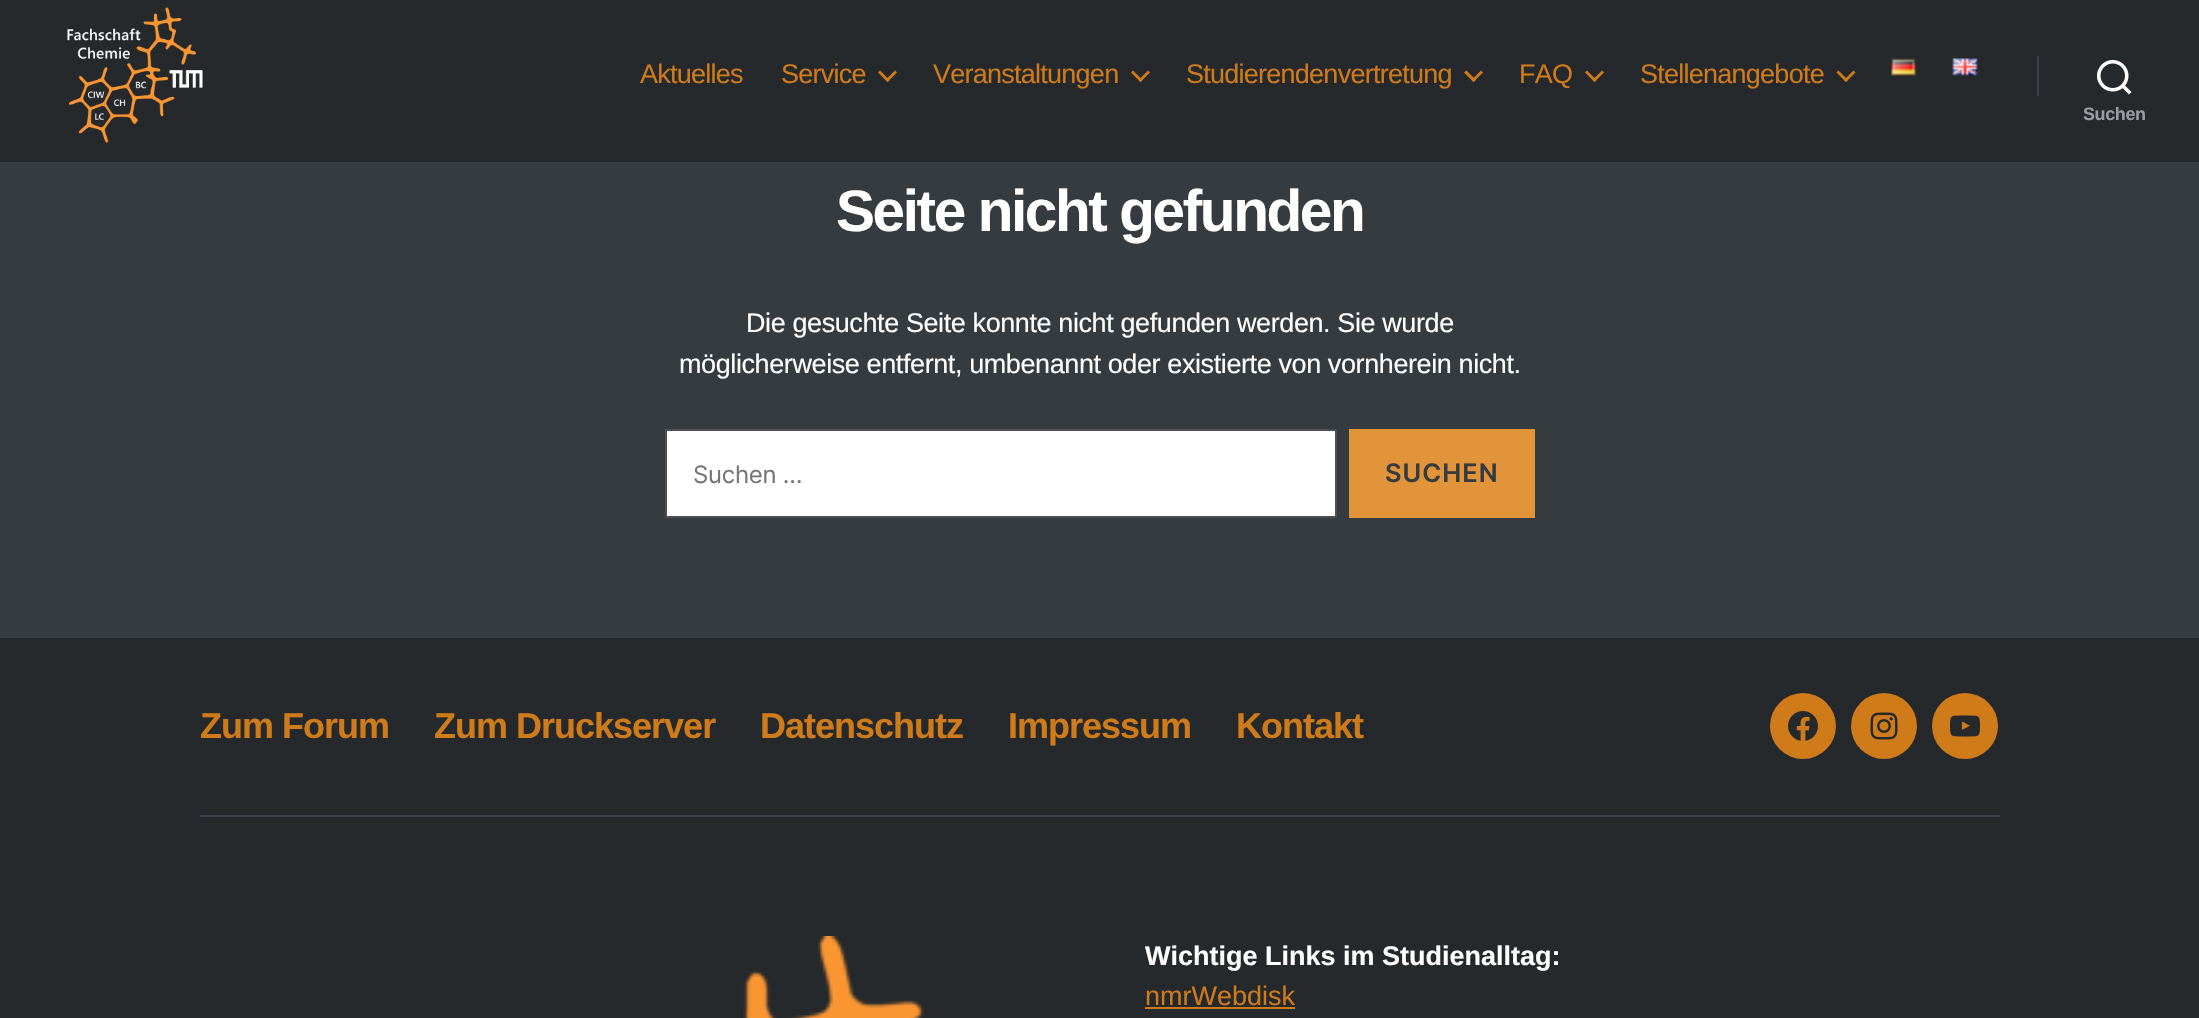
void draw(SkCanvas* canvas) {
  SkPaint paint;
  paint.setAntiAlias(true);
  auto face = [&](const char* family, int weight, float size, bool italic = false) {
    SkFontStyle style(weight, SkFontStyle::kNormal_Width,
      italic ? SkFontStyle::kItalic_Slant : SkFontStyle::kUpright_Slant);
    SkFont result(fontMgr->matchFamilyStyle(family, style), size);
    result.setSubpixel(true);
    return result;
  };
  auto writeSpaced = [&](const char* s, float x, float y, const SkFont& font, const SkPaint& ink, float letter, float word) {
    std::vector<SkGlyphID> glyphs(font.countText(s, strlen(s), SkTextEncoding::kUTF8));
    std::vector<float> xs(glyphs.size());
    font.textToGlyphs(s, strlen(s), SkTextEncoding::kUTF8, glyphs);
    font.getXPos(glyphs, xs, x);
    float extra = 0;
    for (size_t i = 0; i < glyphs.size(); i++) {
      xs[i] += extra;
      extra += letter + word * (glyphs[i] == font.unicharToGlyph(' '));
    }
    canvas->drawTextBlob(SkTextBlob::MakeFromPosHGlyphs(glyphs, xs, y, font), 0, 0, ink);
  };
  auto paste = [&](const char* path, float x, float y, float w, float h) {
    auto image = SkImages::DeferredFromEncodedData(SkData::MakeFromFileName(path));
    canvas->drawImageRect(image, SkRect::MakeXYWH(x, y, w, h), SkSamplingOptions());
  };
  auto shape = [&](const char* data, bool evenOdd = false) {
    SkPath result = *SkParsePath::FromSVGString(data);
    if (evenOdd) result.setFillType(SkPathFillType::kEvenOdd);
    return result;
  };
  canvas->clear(0xff363b3f);
  paint.setColor(0xff26292c);
  canvas->drawRect(SkRect::MakeXYWH(0, 0, 2199, 162), paint);
  paste("img/1.png", 67, 7, 136, 136);
  paint.setColor(0xffcf7b1a);
  canvas->drawPath(shape("M878 72.5L880 70.5L889.5 80L887.5 82Z"), paint);
  canvas->drawPath(shape("M885.5 80L895 70.5L897 72.5L887.5 82Z"), paint);
  canvas->drawPath(shape("M1131 72.5L1133 70.5L1142.5 80L1140.5 82Z"), paint);
  canvas->drawPath(shape("M1138.5 80L1148 70.5L1150 72.5L1140.5 82Z"), paint);
  canvas->drawPath(shape("M1464 72.5L1466.5 70.5L1476 80L1473.5 82Z"), paint);
  canvas->drawPath(shape("M1471.5 80L1481 70.5L1483 72.5L1473.5 82Z"), paint);
  canvas->drawPath(shape("M1585 72.5L1587 70.5L1596.5 80L1594.5 82Z"), paint);
  canvas->drawPath(shape("M1592.5 80L1602 70.5L1604 72.5L1594.5 82Z"), paint);
  canvas->drawPath(shape("M1836.5 72.5L1838.5 70.5L1848 80L1846 82Z"), paint);
  canvas->drawPath(shape("M1844 80L1853.5 70.5L1855.5 72.5L1846 82Z"), paint);
  paste("img/2.png", 1891, 58, 25, 18);
  paste("img/3.png", 1952, 58, 26, 18);
  paint.setColor(0xff3c3f48);
  canvas->drawRect(SkRect::MakeXYWH(2037, 56, 2, 40), paint);
  paste("img/4.png", 2097, 60, 35, 35);
  paint.setColor(0xffffffff);
  canvas->drawRect(SkRect::MakeXYWH(666, 430, 670, 87), paint);
  paint.setStroke(true);
  paint.setStrokeWidth(2);
  paint.setColor(0xff4b5057);
  canvas->drawRect(SkRect::MakeXYWH(666, 430, 670, 87), paint);
  paint.setStroke(false);
  {
    const struct { float x, y, w, h; SkColor color; } items[] = {
      {1349, 429, 186, 89, 0xffe2943a},
      {0, 638, 2199, 380, 0xff26292c},
      {200, 815, 1800, 2, 0xff3c3f48},
    };
    for (auto [x, y, w, h, color] : items) {
      paint.setColor(color);
      canvas->drawRect(SkRect::MakeXYWH(x, y, w, h), paint);
    }
  }
  paint.setColor(0xffcf7b1a);
  canvas->drawCircle(1803, 726, 33, paint);
  paste("img/5.png", 1788, 711, 30, 30);
  canvas->drawCircle(1884, 726, 33, paint);
  paste("img/6.png", 1870, 712, 28, 28);
  canvas->drawCircle(1965, 726, 33, paint);
  paste("img/7.png", 1950, 715, 30, 22);
  paste("img/8.png", 743, 936, 181, 82);
  canvas->drawRect(SkRect::MakeXYWH(1145, 1007, 150, 2), paint);
  auto f0 = face("Liberation Sans", 400, 27);
  {
    const struct { const char* s; float x, y; } items[] = {
      {"Aktuelles", 640, 83},
      {"Service", 781, 83},
      {"Veranstaltungen", 933, 83},
      {"Studierendenvertretung", 1186, 83},
      {"FAQ", 1519, 83},
      {"Stellenangebote", 1640, 83},
    };
    for (auto [s, x, y] : items) {
      writeSpaced(s, x, y, f0, paint, -0.75f, 0);
    }
  }
  auto f1 = face("Liberation Sans", 700, 18);
  paint.setColor(0xff9a9ca1);
  writeSpaced("Suchen", 2083, 120, f1, paint, -0.4f, 0);
  auto f2 = face("Liberation Sans", 700, 58.5f);
  paint.setColor(0xffffffff);
  writeSpaced("Seite nicht gefunden", 836, 231, f2, paint, -2.4f, 0);
  writeSpaced("Die gesuchte Seite konnte nicht gefunden werden. Sie wurde", 746, 332, f0, paint, -0.4f, 0);
  writeSpaced("möglicherweise entfernt, umbenannt oder existierte von vornherein nicht.", 679, 373, f0, paint, -0.4f, 0);
  auto f3 = face("Inter", 400, 24);
  paint.setColor(0xff757575);
  writeSpaced("Suchen …", 693, 483, f3, paint, -0.25f, 0);
  auto f4 = face("Inter", 600, 25.5f);
  paint.setColor(0xff363b3f);
  writeSpaced("SUCHEN", 1385, 482, f4, paint, 1, 0);
  auto f5 = face("Liberation Sans", 700, 36);
  paint.setColor(0xffcf7b1a);
  {
    const struct { const char* s; float x, y; } items[] = {
      {"Zum Forum", 200, 738},
      {"Zum Druckserver", 434, 738},
      {"Datenschutz", 760, 738},
      {"Impressum", 1008, 738},
      {"Kontakt", 1236, 738},
    };
    for (auto [s, x, y] : items) {
      writeSpaced(s, x, y, f5, paint, -1, 0);
    }
  }
  auto f6 = face("Liberation Sans", 700, 27);
  paint.setColor(0xffffffff);
  canvas->drawString("Wichtige Links im Studienalltag:", 1145, 965, f6, paint);
  paint.setColor(0xffcf7b1a);
  canvas->drawString("nmrWebdisk", 1145, 1005, f0, paint);
}
